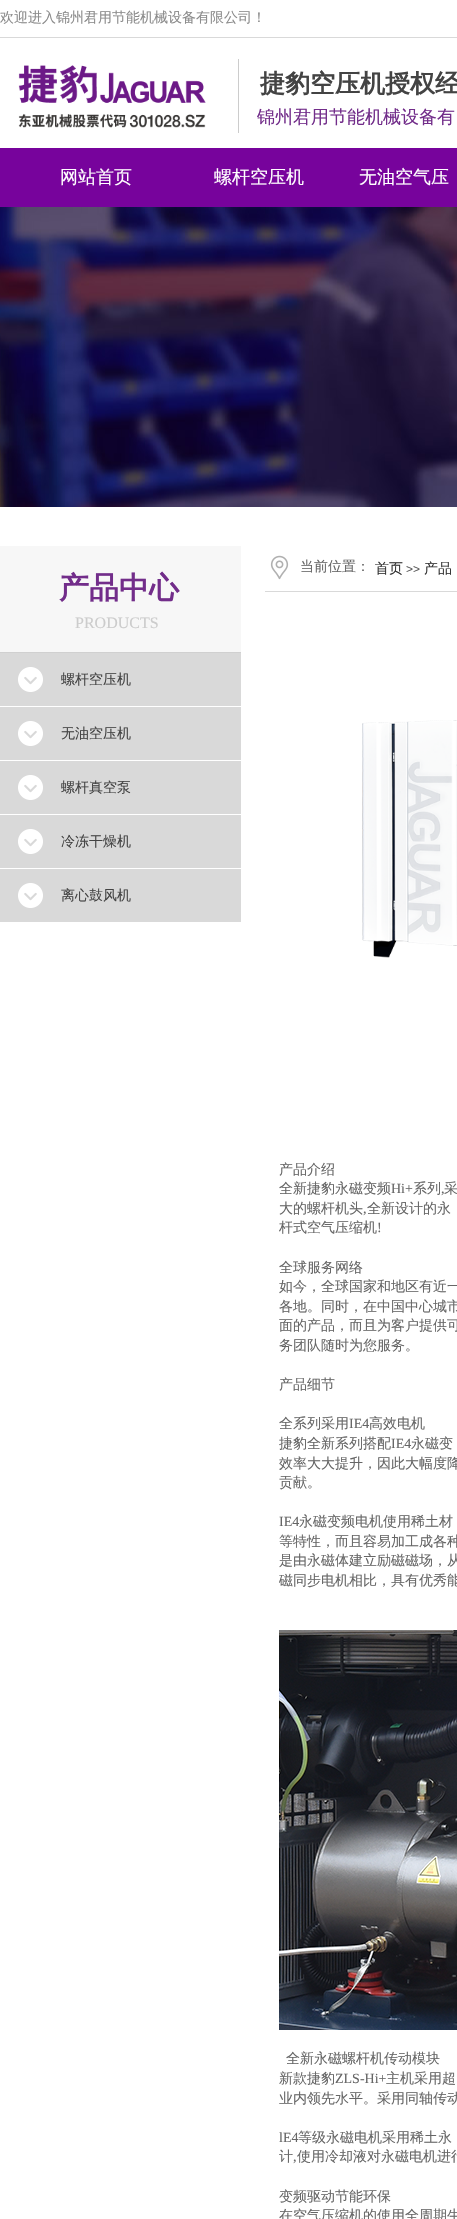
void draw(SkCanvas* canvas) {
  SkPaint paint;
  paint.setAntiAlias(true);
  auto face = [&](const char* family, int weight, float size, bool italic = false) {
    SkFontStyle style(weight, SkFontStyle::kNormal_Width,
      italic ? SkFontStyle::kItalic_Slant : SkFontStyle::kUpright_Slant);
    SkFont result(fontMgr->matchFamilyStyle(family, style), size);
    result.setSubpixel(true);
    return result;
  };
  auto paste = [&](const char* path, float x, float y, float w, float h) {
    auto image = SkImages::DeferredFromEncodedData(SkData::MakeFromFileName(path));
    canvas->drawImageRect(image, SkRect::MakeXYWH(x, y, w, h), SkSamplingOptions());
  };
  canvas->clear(0xffffffff);
  paint.setColor(0xffd9d9d9);
  canvas->drawRect(SkRect::MakeXYWH(0, 37, 457, 1), paint);
  paste("img/1.png", 18, 65, 188, 63);
  paint.setColor(0xffcccccc);
  canvas->drawRect(SkRect::MakeXYWH(238, 59, 1, 74), paint);
  paint.setColor(0xff77039c);
  canvas->drawRect(SkRect::MakeXYWH(0, 148, 457, 59), paint);
  paste("img/2.png", 0, 207, 457, 300);
  paste("img/3.png", 270, 555, 19, 25);
  {
    const struct { float x, y, w, h; SkColor color; } items[] = {
      {0, 546, 241, 106, 0xfff7f7f7},
      {0, 652, 241, 1, 0xffd0d0d0},
      {265, 591, 192, 1, 0xffd9d9d9},
      {0, 653, 241, 53, 0xffd9d9d9},
    };
    for (auto [x, y, w, h, color] : items) {
      paint.setColor(color);
      canvas->drawRect(SkRect::MakeXYWH(x, y, w, h), paint);
    }
  }
  paste("img/4.png", 18, 667, 25, 25);
  canvas->drawRect(SkRect::MakeXYWH(0, 707, 241, 53), paint);
  paste("img/4.png", 18, 721, 25, 25);
  canvas->drawRect(SkRect::MakeXYWH(0, 761, 241, 53), paint);
  paste("img/4.png", 18, 775, 25, 25);
  canvas->drawRect(SkRect::MakeXYWH(0, 815, 241, 53), paint);
  paste("img/4.png", 18, 829, 25, 25);
  canvas->drawRect(SkRect::MakeXYWH(0, 869, 241, 53), paint);
  paste("img/4.png", 18, 883, 25, 25);
  paste("img/5.png", 362, 720, 95, 238);
  paste("img/6.png", 279, 1630, 178, 400);
  auto f0 = face("WenQuanYi Zen Hei", 500, 14);
  paint.setColor(0xff8b8b8b);
  canvas->drawString("欢迎进入锦州君用节能机械设备有限公司！", 0, 22, f0, paint);
  auto f1 = face("WenQuanYi Zen Hei", 700, 25);
  paint.setColor(0xff434343);
  canvas->drawString("捷豹空压机授权经", 260, 92, f1, paint);
  auto f2 = face("WenQuanYi Zen Hei", 500, 18);
  paint.setColor(0xff722d8a);
  canvas->drawString("锦州君用节能机械设备有", 257, 123, f2, paint);
  paint.setColor(0xffffffff);
  {
    const struct { const char* s; float x, y; } items[] = {
      {"网站首页", 60, 183},
      {"螺杆空压机", 214, 183},
      {"无油空气压", 359, 183},
    };
    for (auto [s, x, y] : items) {
      canvas->drawString(s, x, y, f2, paint);
    }
  }
  paint.setColor(0xff666666);
  canvas->drawString("当前位置：", 300, 571, f0, paint);
  paint.setColor(0xff333333);
  canvas->drawString("首页", 375, 573, f0, paint);
  auto f3 = face("Liberation Sans", 400, 12);
  paint.setColor(0xff5a5a5a);
  canvas->drawString(">>", 406, 573, f3, paint);
  paint.setColor(0xff333333);
  canvas->drawString("产品", 424, 573, f0, paint);
  auto f4 = face("WenQuanYi Zen Hei", 700, 30);
  paint.setColor(0xff722d8a);
  canvas->drawString("产品中心", 59, 598, f4, paint);
  auto f5 = face("Liberation Serif", 400, 16);
  paint.setColor(0xffcccccc);
  canvas->drawString("PRODUCTS", 75, 628, f5, paint);
  paint.setColor(0xff434343);
  {
    const struct { const char* s; float x, y; } items[] = {
      {"螺杆空压机", 61, 684},
      {"无油空压机", 61, 738},
      {"螺杆真空泵", 61, 792},
      {"冷冻干燥机", 61, 846},
      {"离心鼓风机", 61, 900},
    };
    for (auto [s, x, y] : items) {
      canvas->drawString(s, x, y, f0, paint);
    }
  }
  paint.setColor(0xff666666);
  canvas->drawString("产品介绍", 279, 1174, f0, paint);
  canvas->drawString("全新捷豹永磁变频", 279, 1193, f0, paint);
  auto f6 = face("Liberation Serif", 400, 14);
  canvas->drawString("Hi+", 391, 1193, f6, paint);
  canvas->drawString("系列", 413, 1193, f0, paint);
  canvas->drawString("采", 444, 1193, f0, paint);
  canvas->drawString(",", 441, 1193, f6, paint);
  canvas->drawString("大的螺杆机头", 279, 1213, f0, paint);
  canvas->drawString(",", 363, 1213, f6, paint);
  canvas->drawString("全新设计的永", 367, 1213, f0, paint);
  canvas->drawString("杆式空气压缩机", 279, 1232, f0, paint);
  canvas->drawString("!", 377, 1232, f6, paint);
  {
    const struct { const char* s; float x, y; } items[] = {
      {"全球服务网络", 279, 1272},
      {"如今，全球国家和地区有近一", 279, 1291},
      {"各地。同时，在中国中心城市", 279, 1311},
      {"面的产品，而且为客户提供可", 279, 1330},
      {"务团队随时为您服务。", 279, 1350},
      {"产品细节", 279, 1389},
      {"全系列采用", 279, 1428},
    };
    for (auto [s, x, y] : items) {
      canvas->drawString(s, x, y, f0, paint);
    }
  }
  canvas->drawString("IE4", 349, 1428, f6, paint);
  canvas->drawString("高效电机", 369, 1428, f0, paint);
  canvas->drawString("捷豹全新系列搭配", 279, 1448, f0, paint);
  canvas->drawString("IE4", 391, 1448, f6, paint);
  {
    const struct { const char* s; float x, y; } items[] = {
      {"永磁变", 411, 1448},
      {"效率大大提升，因此大幅度降", 279, 1468},
      {"贡献。", 279, 1487},
    };
    for (auto [s, x, y] : items) {
      canvas->drawString(s, x, y, f0, paint);
    }
  }
  canvas->drawString("IE4", 279, 1526, f6, paint);
  {
    const struct { const char* s; float x, y; } items[] = {
      {"永磁变频电机使用稀土材", 299, 1526},
      {"等特性，而且容易加工成各种", 279, 1546},
      {"是由永磁体建立励磁磁场，从", 279, 1565},
      {"磁同步电机相比，具有优秀能", 279, 1585},
      {"全新永磁螺杆机传动模块", 286, 2063},
      {"新款捷豹", 279, 2083},
    };
    for (auto [s, x, y] : items) {
      canvas->drawString(s, x, y, f0, paint);
    }
  }
  canvas->drawString("ZLS-Hi+", 335, 2083, f6, paint);
  canvas->drawString("主机采用超", 386, 2083, f0, paint);
  canvas->drawString("业内领先水平。采用同轴传动", 279, 2103, f0, paint);
  canvas->drawString("lE4", 279, 2142, f6, paint);
  canvas->drawString("等级永磁电机采用稀土永", 298, 2142, f0, paint);
  canvas->drawString("计", 279, 2161, f0, paint);
  canvas->drawString(",", 293, 2161, f6, paint);
  {
    const struct { const char* s; float x, y; } items[] = {
      {"使用冷却液对永磁电机进行", 297, 2161},
      {"变频驱动节能环保", 279, 2201},
      {"在空气压缩机的使用全周期生", 279, 2220},
    };
    for (auto [s, x, y] : items) {
      canvas->drawString(s, x, y, f0, paint);
    }
  }
}
